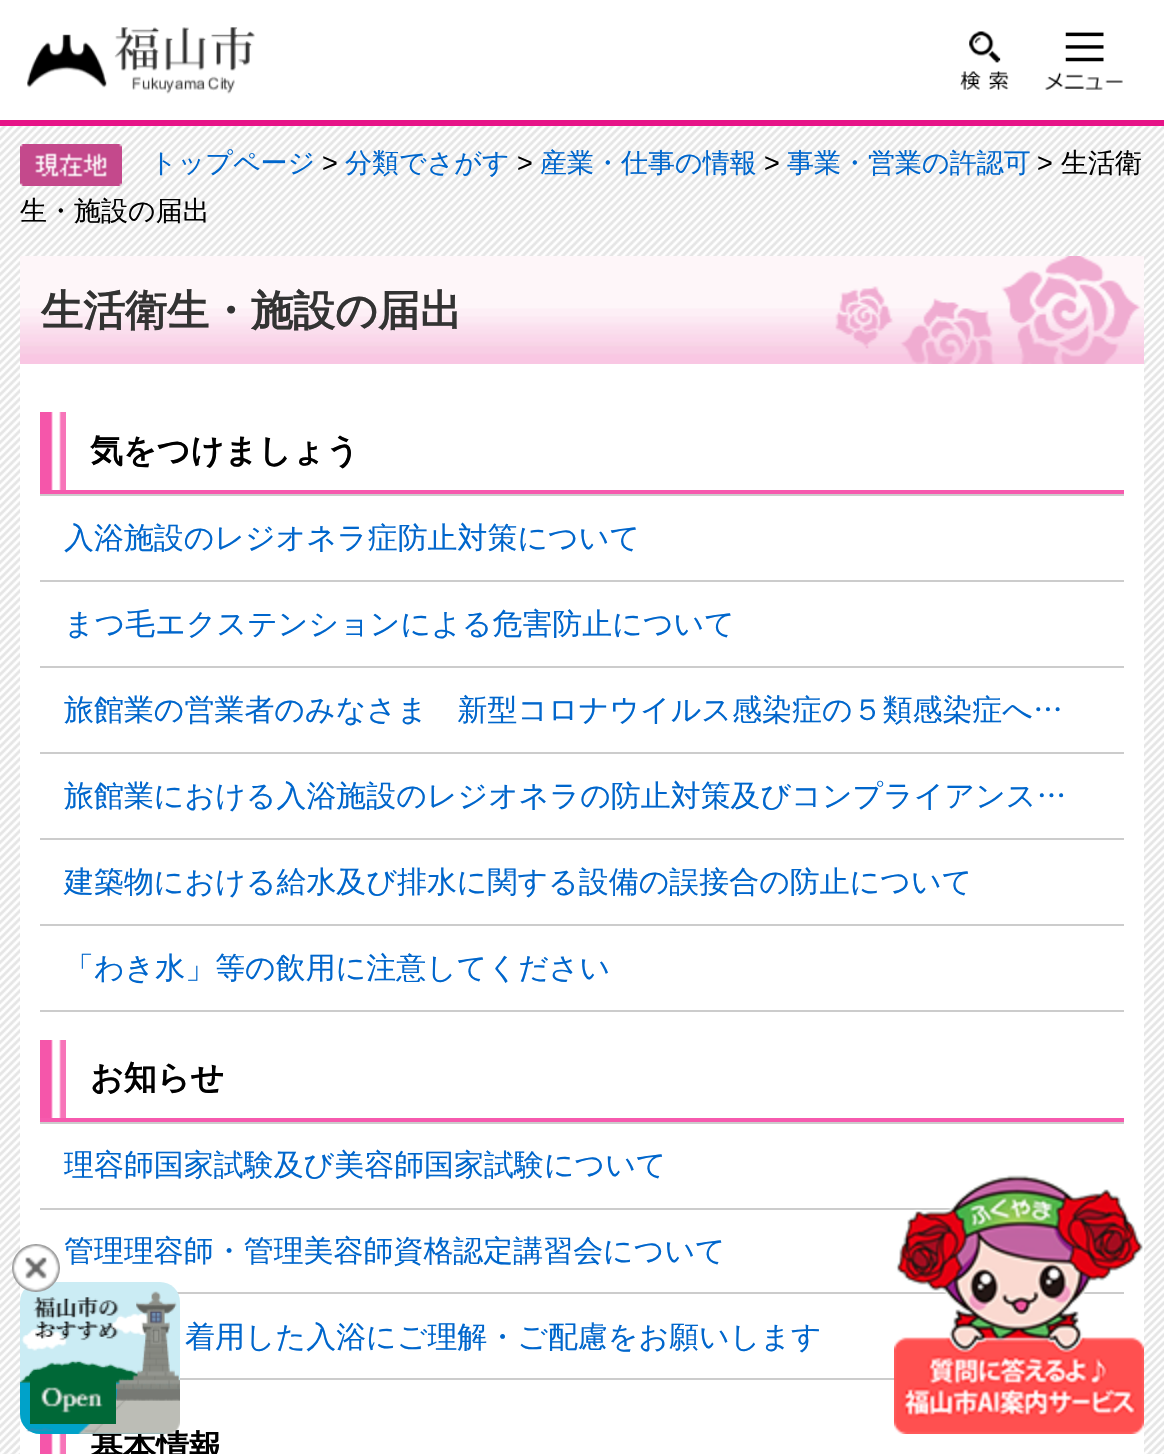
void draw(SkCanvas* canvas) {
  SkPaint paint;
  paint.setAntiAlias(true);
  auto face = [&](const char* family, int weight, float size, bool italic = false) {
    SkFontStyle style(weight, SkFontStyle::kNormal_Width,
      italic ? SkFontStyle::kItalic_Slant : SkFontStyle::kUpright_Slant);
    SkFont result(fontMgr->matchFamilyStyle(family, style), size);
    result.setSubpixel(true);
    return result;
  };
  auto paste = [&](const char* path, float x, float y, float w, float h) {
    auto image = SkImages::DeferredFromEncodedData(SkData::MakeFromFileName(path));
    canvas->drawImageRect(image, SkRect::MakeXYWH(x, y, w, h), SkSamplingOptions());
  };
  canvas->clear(0xffffffff);
  paste("img/1.png", 0, 126, 1164, 1328);
  paint.setColor(0xffe61387);
  canvas->drawRect(SkRect::MakeXYWH(0, 120, 1164, 6), paint);
  paste("img/2.png", 27, 27, 228, 67);
  paste("img/3.png", 960, 31, 49, 59);
  paste("img/4.png", 1045, 32, 78, 58);
  paste("img/5.png", 20, 144, 102, 42);
  paint.setColor(0xffffffff);
  canvas->drawRect(SkRect::MakeXYWH(20, 364, 1124, 1090), paint);
  paste("img/6.png", 20, 256, 1124, 108);
  paste("img/7.png", 40, 412, 26, 78);
  {
    const struct { float x, y, w, h; SkColor color; } items[] = {
      {40, 490, 1084, 4, 0xfff65aae},
      {40, 494, 1084, 2, 0xffcccccc},
      {40, 580, 1084, 2, 0xffcccccc},
      {40, 666, 1084, 2, 0xffcccccc},
      {40, 752, 1084, 2, 0xffcccccc},
      {40, 838, 1084, 2, 0xffcccccc},
      {40, 924, 1084, 2, 0xffcccccc},
      {40, 1010, 1084, 2, 0xffcccccc},
    };
    for (auto [x, y, w, h, color] : items) {
      paint.setColor(color);
      canvas->drawRect(SkRect::MakeXYWH(x, y, w, h), paint);
    }
  }
  paste("img/7.png", 40, 1040, 26, 78);
  {
    const struct { float x, y, w, h; SkColor color; } items[] = {
      {40, 1118, 1084, 4, 0xfff65aae},
      {40, 1122, 1084, 2, 0xffcccccc},
      {40, 1208, 1084, 2, 0xffcccccc},
      {177, 1292, 947, 2, 0xffcccccc},
      {180, 1378, 717, 2, 0xffcccccc},
    };
    for (auto [x, y, w, h, color] : items) {
      paint.setColor(color);
      canvas->drawRect(SkRect::MakeXYWH(x, y, w, h), paint);
    }
  }
  paste("img/8.png", 40, 1434, 26, 20);
  paste("img/14.png", 894, 1175, 250, 259);
  auto f0 = face("WenQuanYi Zen Hei", 500, 27);
  paint.setColor(0xff0066cc);
  canvas->drawString("トップページ", 150, 172, f0, paint);
  auto f1 = face("Liberation Sans", 400, 27);
  paint.setColor(0xff000000);
  canvas->drawString(">", 322, 172, f1, paint);
  paint.setColor(0xff0066cc);
  canvas->drawString("分類でさがす", 345, 172, f0, paint);
  paint.setColor(0xff000000);
  canvas->drawString(">", 517, 172, f1, paint);
  paint.setColor(0xff0066cc);
  canvas->drawString("産業・仕事の情報", 540, 172, f0, paint);
  paint.setColor(0xff000000);
  canvas->drawString(">", 764, 172, f1, paint);
  paint.setColor(0xff0066cc);
  canvas->drawString("事業・営業の許認可", 787, 172, f0, paint);
  paint.setColor(0xff000000);
  canvas->drawString(">", 1037, 172, f1, paint);
  canvas->drawString("生活衛", 1061, 172, f0, paint);
  canvas->drawString("生・施設の届出", 20, 220, f0, paint);
  auto f2 = face("WenQuanYi Zen Hei", 700, 42);
  paint.setColor(0xff333333);
  canvas->drawString("生活衛生・施設の届出", 41, 325, f2, paint);
  auto f3 = face("WenQuanYi Zen Hei", 700, 33);
  paint.setColor(0xff000000);
  canvas->drawString("気をつけましょう", 90, 462, f3, paint);
  auto f4 = face("WenQuanYi Zen Hei", 500, 29.95f);
  paint.setColor(0xff0066cc);
  {
    const struct { const char* s; float x, y; } items[] = {
      {"入浴施設のレジオネラ症防止対策について", 64, 548},
      {"まつ毛エクステンションによる危害防止について", 64, 634},
      {"旅館業の営業者のみなさま　新型コロナウイルス感染症の５類感染症へ…", 64, 720},
      {"旅館業における入浴施設のレジオネラの防止対策及びコンプライアンス…", 64, 806},
      {"建築物における給水及び排水に関する設備の誤接合の防止について", 64, 892},
      {"「わき水」等の飲用に注意してください", 64, 978},
    };
    for (auto [s, x, y] : items) {
      canvas->drawString(s, x, y, f4, paint);
    }
  }
  paint.setColor(0xff000000);
  canvas->drawString("お知らせ", 90, 1089, f3, paint);
  paint.setColor(0xff0066cc);
  {
    const struct { const char* s; float x, y; } items[] = {
      {"理容師国家試験及び美容師国家試験について", 64, 1175},
      {"管理理容師・管理美容師資格認定講習会について", 64, 1261},
      {"着用した入浴にご理解・ご配慮をお願いします", 185, 1347},
    };
    for (auto [s, x, y] : items) {
      canvas->drawString(s, x, y, f4, paint);
    }
  }
  paint.setColor(0xff000000);
  canvas->drawString("基本情報", 90, 1458, f3, paint);
  paint.setColor(0xffcbecf4);
  canvas->drawRoundRect(SkRect::MakeXYWH(20, 1282, 160, 152), 20, 20, paint);
  paste("img/9.png", 20, 1381, 160, 53);
  paste("img/11.png", 20, 1291, 160, 143);
  paste("img/10.png", 12, 1244, 48, 48);
  paste("img/12.png", 21, 1297, 98, 135);
  paste("img/13.png", 30, 1374, 86, 50);
}
